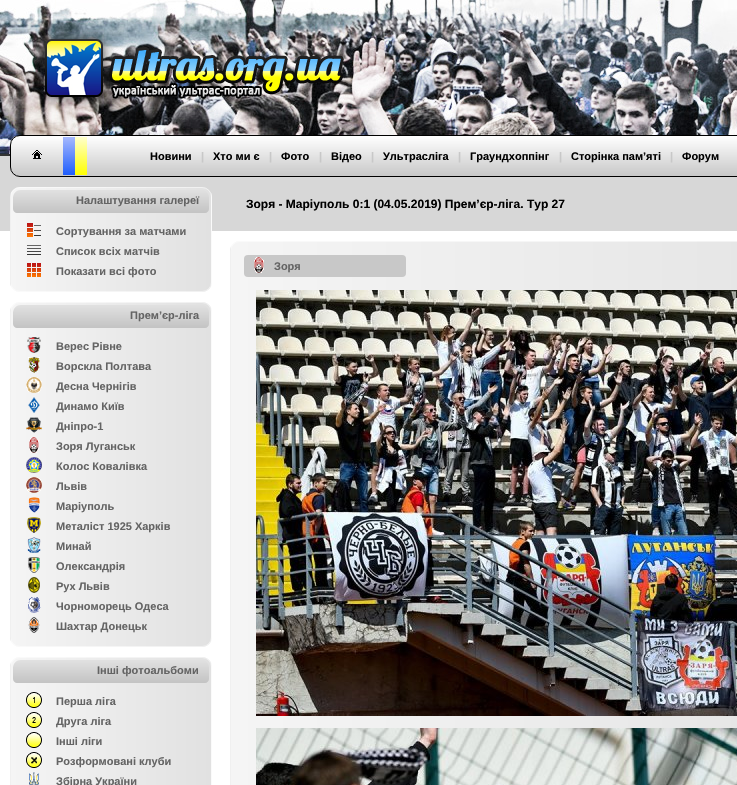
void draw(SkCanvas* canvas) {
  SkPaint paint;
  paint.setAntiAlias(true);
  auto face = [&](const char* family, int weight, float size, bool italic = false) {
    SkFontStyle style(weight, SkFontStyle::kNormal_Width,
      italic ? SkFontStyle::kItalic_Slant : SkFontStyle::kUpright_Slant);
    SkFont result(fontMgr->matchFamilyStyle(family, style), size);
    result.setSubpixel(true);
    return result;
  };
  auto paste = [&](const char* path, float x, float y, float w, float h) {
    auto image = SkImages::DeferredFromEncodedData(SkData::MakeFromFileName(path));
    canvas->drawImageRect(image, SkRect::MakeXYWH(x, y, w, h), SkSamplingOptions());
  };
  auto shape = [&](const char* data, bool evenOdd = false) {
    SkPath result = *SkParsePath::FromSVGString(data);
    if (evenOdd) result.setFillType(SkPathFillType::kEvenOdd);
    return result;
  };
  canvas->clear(0xffffffff);
  paste("img/1.png", 0, 0, 737, 154);
  paint.setColor(0xff333333);
  canvas->drawRect(SkRect::MakeXYWH(0, 154, 10, 2), paint);
  paste("img/2.png", 34, 28, 310, 80);
  paint.setColor(0xffd7d7d7);
  canvas->drawRect(SkRect::MakeXYWH(0, 156, 737, 75), paint);
  canvas->save();
  canvas->clipPath(shape("M20 135H922C927.5 135 932 139.5 932 145V167C932 172.5 927.5 177 922 177H20C14.5 177 10 172.5 10 167V145C10 139.5 14.5 135 20 135Z"), true);
  {
    const SkColor colors[] = {0xffc8c8c8, 0xffffffff};
    const float stops[] = {0, 1};
    const SkPoint ends[] = {{471, 176}, {471, 136}};
    paint.setShader(SkGradientShader::MakeLinear(ends, colors, stops, 2, SkTileMode::kClamp));
    paint.setAlpha(255);
  }
  canvas->drawRect(SkRect::MakeXYWH(10, 136, 727, 40), paint);
  canvas->restore();
  paint.setStroke(true);
  paint.setStrokeWidth(1);
  paint.setShader(nullptr);
  paint.setColor(0xff000000);
  canvas->drawRoundRect(SkRect::MakeXYWH(10.5f, 135.5f, 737, 41), 9.5f, 9.5f, paint);
  paste("img/3.png", 32, 150, 10, 9);
  paint.setStroke(false);
  {
    const SkColor colors[] = {0xffa6b9fd, 0xff1f5dfc};
    const float stops[] = {0, 1};
    const SkPoint ends[] = {{69, 137}, {69, 175}};
    paint.setShader(SkGradientShader::MakeLinear(ends, colors, stops, 2, SkTileMode::kClamp));
    paint.setAlpha(255);
  }
  canvas->drawRect(SkRect::MakeXYWH(63, 137, 12, 38), paint);
  {
    const SkColor colors[] = {0xffffffcc, 0xffffff00};
    const float stops[] = {0, 1};
    const SkPoint ends[] = {{81, 137}, {81, 175}};
    paint.setShader(SkGradientShader::MakeLinear(ends, colors, stops, 2, SkTileMode::kClamp));
    paint.setAlpha(255);
  }
  canvas->drawRect(SkRect::MakeXYWH(75, 137, 12, 38), paint);
  canvas->save();
  canvas->clipPath(shape("M20 187H202C207.5 187 212 191.5 212 197V282C212 287.5 207.5 292 202 292H20C14.5 292 10 287.5 10 282V197C10 191.5 14.5 187 20 187Z"), true);
  {
    const SkColor colors[] = {0xffe1e1e1, 0xfff5f5f5};
    const float stops[] = {0, 1};
    const SkPoint ends[] = {{11, 240}, {-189, 240}};
    paint.setShader(SkGradientShader::MakeLinear(ends, colors, stops, 2, SkTileMode::kClamp));
    paint.setAlpha(255);
  }
  canvas->drawRect(SkRect::MakeXYWH(10, 187, 1, 105), paint);
  {
    const SkColor colors[] = {0xffe1e1e1, 0xfff5f5f5};
    const float stops[] = {0, 1};
    const SkPoint ends[] = {{211, 240}, {11, 240}};
    paint.setShader(SkGradientShader::MakeLinear(ends, colors, stops, 2, SkTileMode::kClamp));
    paint.setAlpha(255);
  }
  canvas->drawRect(SkRect::MakeXYWH(11, 187, 200, 105), paint);
  {
    const SkColor colors[] = {0xffe1e1e1, 0xfff5f5f5};
    const float stops[] = {0, 1};
    const SkPoint ends[] = {{411, 240}, {211, 240}};
    paint.setShader(SkGradientShader::MakeLinear(ends, colors, stops, 2, SkTileMode::kClamp));
    paint.setAlpha(255);
  }
  canvas->drawRect(SkRect::MakeXYWH(211, 187, 1, 105), paint);
  canvas->restore();
  paint.setStroke(true);
  paint.setShader(nullptr);
  paint.setColor(0x80ffffff);
  canvas->drawRoundRect(SkRect::MakeXYWH(10.5f, 187.5f, 201, 104), 9.5f, 9.5f, paint);
  paint.setStroke(false);
  {
    const SkColor colors[] = {0xffc3c3c3, 0xffe1e1e1};
    const float stops[] = {0, 1};
    const SkPoint ends[] = {{111, 213}, {111, 190}};
    paint.setShader(SkGradientShader::MakeLinear(ends, colors, stops, 2, SkTileMode::kClamp));
    paint.setAlpha(255);
  }
  canvas->drawPath(shape("M21 190H201C205.5 190 209 193.5 209 198V209C209 211 207 213 205 213H17C15 213 13 211 13 209V198C13 193.5 16.5 190 21 190Z"), paint);
  paste("img/4.png", 27, 223, 14, 14);
  paste("img/5.png", 27, 245, 14, 10);
  paste("img/6.png", 27, 263, 14, 14);
  canvas->save();
  canvas->clipPath(shape("M20 302H202C207.5 302 212 306.5 212 312V637C212 642.5 207.5 647 202 647H20C14.5 647 10 642.5 10 637V312C10 306.5 14.5 302 20 302Z"), true);
  {
    const SkColor colors[] = {0xffe1e1e1, 0xfff5f5f5};
    const float stops[] = {0, 1};
    const SkPoint ends[] = {{11, 475}, {-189, 475}};
    paint.setShader(SkGradientShader::MakeLinear(ends, colors, stops, 2, SkTileMode::kClamp));
    paint.setAlpha(255);
  }
  canvas->drawRect(SkRect::MakeXYWH(10, 302, 1, 345), paint);
  {
    const SkColor colors[] = {0xffe1e1e1, 0xfff5f5f5};
    const float stops[] = {0, 1};
    const SkPoint ends[] = {{211, 475}, {11, 475}};
    paint.setShader(SkGradientShader::MakeLinear(ends, colors, stops, 2, SkTileMode::kClamp));
    paint.setAlpha(255);
  }
  canvas->drawRect(SkRect::MakeXYWH(11, 302, 200, 345), paint);
  {
    const SkColor colors[] = {0xffe1e1e1, 0xfff5f5f5};
    const float stops[] = {0, 1};
    const SkPoint ends[] = {{411, 475}, {211, 475}};
    paint.setShader(SkGradientShader::MakeLinear(ends, colors, stops, 2, SkTileMode::kClamp));
    paint.setAlpha(255);
  }
  canvas->drawRect(SkRect::MakeXYWH(211, 302, 1, 345), paint);
  canvas->restore();
  paint.setStroke(true);
  paint.setShader(nullptr);
  paint.setColor(0x80ffffff);
  canvas->drawRoundRect(SkRect::MakeXYWH(10.5f, 302.5f, 201, 344), 9.5f, 9.5f, paint);
  paint.setStroke(false);
  {
    const SkColor colors[] = {0xffc3c3c3, 0xffe1e1e1};
    const float stops[] = {0, 1};
    const SkPoint ends[] = {{111, 328}, {111, 305}};
    paint.setShader(SkGradientShader::MakeLinear(ends, colors, stops, 2, SkTileMode::kClamp));
    paint.setAlpha(255);
  }
  canvas->drawPath(shape("M21 305H201C205.5 305 209 308.5 209 313V324C209 326 207 328 205 328H17C15 328 13 326 13 324V313C13 308.5 16.5 305 21 305Z"), paint);
  paste("img/7.png", 27, 337, 14, 16);
  paste("img/8.png", 28, 357, 12, 16);
  paste("img/9.png", 26, 377, 16, 16);
  paste("img/10.png", 28, 397, 12, 16);
  paste("img/11.png", 26, 417, 16, 16);
  paste("img/12.png", 29, 437, 10, 16);
  paste("img/13.png", 26, 457, 16, 16);
  paste("img/14.png", 26, 477, 16, 16);
  paste("img/15.png", 28, 497, 12, 16);
  paste("img/16.png", 27, 517, 14, 16);
  paste("img/17.png", 27, 537, 14, 16);
  paste("img/18.png", 28, 557, 12, 16);
  paste("img/19.png", 28, 577, 12, 16);
  paste("img/20.png", 28, 597, 13, 16);
  paste("img/21.png", 28, 617, 12, 16);
  canvas->save();
  canvas->clipPath(shape("M20 657H202C207.5 657 212 661.5 212 667V792C212 797.5 207.5 802 202 802H20C14.5 802 10 797.5 10 792V667C10 661.5 14.5 657 20 657Z"), true);
  {
    const SkColor colors[] = {0xffe1e1e1, 0xfff5f5f5};
    const float stops[] = {0, 1};
    const SkPoint ends[] = {{11, 730}, {-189, 730}};
    paint.setShader(SkGradientShader::MakeLinear(ends, colors, stops, 2, SkTileMode::kClamp));
    paint.setAlpha(255);
  }
  canvas->drawRect(SkRect::MakeXYWH(10, 657, 1, 128), paint);
  {
    const SkColor colors[] = {0xffe1e1e1, 0xfff5f5f5};
    const float stops[] = {0, 1};
    const SkPoint ends[] = {{211, 730}, {11, 730}};
    paint.setShader(SkGradientShader::MakeLinear(ends, colors, stops, 2, SkTileMode::kClamp));
    paint.setAlpha(255);
  }
  canvas->drawRect(SkRect::MakeXYWH(11, 657, 200, 128), paint);
  {
    const SkColor colors[] = {0xffe1e1e1, 0xfff5f5f5};
    const float stops[] = {0, 1};
    const SkPoint ends[] = {{411, 730}, {211, 730}};
    paint.setShader(SkGradientShader::MakeLinear(ends, colors, stops, 2, SkTileMode::kClamp));
    paint.setAlpha(255);
  }
  canvas->drawRect(SkRect::MakeXYWH(211, 657, 1, 128), paint);
  canvas->restore();
  paint.setStroke(true);
  paint.setShader(nullptr);
  paint.setColor(0x80ffffff);
  canvas->drawRoundRect(SkRect::MakeXYWH(10.5f, 657.5f, 201, 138), 9.5f, 9.5f, paint);
  paint.setStroke(false);
  {
    const SkColor colors[] = {0xffc3c3c3, 0xffe1e1e1};
    const float stops[] = {0, 1};
    const SkPoint ends[] = {{111, 683}, {111, 660}};
    paint.setShader(SkGradientShader::MakeLinear(ends, colors, stops, 2, SkTileMode::kClamp));
    paint.setAlpha(255);
  }
  canvas->drawPath(shape("M21 660H201C205.5 660 209 663.5 209 668V679C209 681 207 683 205 683H17C15 683 13 681 13 679V668C13 663.5 16.5 660 21 660Z"), paint);
  paste("img/22.png", 26, 692, 16, 16);
  paste("img/23.png", 26, 712, 16, 16);
  paste("img/24.png", 26, 732, 16, 16);
  paste("img/25.png", 26, 752, 16, 16);
  paste("img/26.png", 29, 772, 10, 13);
  canvas->save();
  canvas->clipPath(shape("M240 241H912C917.5 241 922 245.5 922 251V1164C922 1169.5 917.5 1174 912 1174H240C234.5 1174 230 1169.5 230 1164V251C230 245.5 234.5 241 240 241Z"), true);
  {
    const SkColor colors[] = {0xffe1e1e1, 0xfff5f5f5};
    const float stops[] = {0, 1};
    const SkPoint ends[] = {{231, 708}, {-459, 708}};
    paint.setShader(SkGradientShader::MakeLinear(ends, colors, stops, 2, SkTileMode::kClamp));
    paint.setAlpha(255);
  }
  canvas->drawRect(SkRect::MakeXYWH(230, 241, 1, 544), paint);
  {
    const SkColor colors[] = {0xffe1e1e1, 0xfff5f5f5};
    const float stops[] = {0, 1};
    const SkPoint ends[] = {{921, 708}, {231, 708}};
    paint.setShader(SkGradientShader::MakeLinear(ends, colors, stops, 2, SkTileMode::kClamp));
    paint.setAlpha(255);
  }
  canvas->drawRect(SkRect::MakeXYWH(231, 241, 506, 544), paint);
  canvas->restore();
  paint.setStroke(true);
  paint.setShader(nullptr);
  paint.setColor(0x80ffffff);
  canvas->drawRoundRect(SkRect::MakeXYWH(230.5f, 241.5f, 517, 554), 9.5f, 9.5f, paint);
  paint.setStroke(false);
  paint.setColor(0xffc8c8c8);
  canvas->drawRoundRect(SkRect::MakeXYWH(244, 255, 162, 22), 4, 4, paint);
  paste("img/27.png", 254, 257, 10, 16);
  paste("img/28.png", 256, 290, 481, 426);
  paste("img/29.png", 256, 728, 481, 57);
  auto f0 = face("Liberation Sans", 700, 11);
  paint.setColor(0xff000000);
  canvas->drawString("Новини", 150, 160, f0, paint);
  paint.setColor(0xffc8c8c8);
  canvas->drawString("|", 201, 160, f0, paint);
  paint.setColor(0xff000000);
  canvas->drawString("Хто ми є", 213, 160, f0, paint);
  paint.setColor(0xffc8c8c8);
  canvas->drawString("|", 269, 160, f0, paint);
  paint.setColor(0xff000000);
  canvas->drawString("Фото", 281, 160, f0, paint);
  paint.setColor(0xffc8c8c8);
  canvas->drawString("|", 319, 160, f0, paint);
  paint.setColor(0xff000000);
  canvas->drawString("Відео", 331, 160, f0, paint);
  paint.setColor(0xffc8c8c8);
  canvas->drawString("|", 371, 160, f0, paint);
  paint.setColor(0xff000000);
  canvas->drawString("Ультрасліга", 383, 160, f0, paint);
  paint.setColor(0xffc8c8c8);
  canvas->drawString("|", 458, 160, f0, paint);
  paint.setColor(0xff000000);
  canvas->drawString("Граундхоппінг", 470, 160, f0, paint);
  paint.setColor(0xffc8c8c8);
  canvas->drawString("|", 559, 160, f0, paint);
  paint.setColor(0xff000000);
  canvas->drawString("Сторінка пам’яті", 571, 160, f0, paint);
  paint.setColor(0xffc8c8c8);
  canvas->drawString("|", 670, 160, f0, paint);
  paint.setColor(0xff000000);
  canvas->drawString("Форум", 682, 160, f0, paint);
  paint.setColor(0xff646464);
  {
    const struct { const char* s; float x, y; } items[] = {
      {"Налаштування галереї", 76, 204},
      {"Сортування за матчами", 56, 235},
      {"Список всіх матчів", 56, 255},
      {"Показати всі фото", 56, 275},
      {"Прем’єр-ліга", 130, 319},
      {"Верес Рівне", 56, 350},
      {"Ворскла Полтава", 56, 370},
      {"Десна Чернігів", 56, 390},
      {"Динамо Київ", 56, 410},
      {"Дніпро-1", 56, 430},
      {"Зоря Луганськ", 56, 450},
      {"Колос Ковалівка", 56, 470},
      {"Львів", 56, 490},
      {"Маріуполь", 56, 510},
      {"Металіст 1925 Харків", 56, 530},
      {"Минай", 56, 550},
      {"Олександрія", 56, 570},
      {"Рух Львів", 56, 590},
      {"Чорноморець Одеса", 56, 610},
      {"Шахтар Донецьк", 56, 630},
      {"Інші фотоальбоми", 97, 674},
      {"Перша ліга", 56, 705},
      {"Друга ліга", 56, 725},
      {"Інші ліги", 56, 745},
      {"Розформовані клуби", 56, 765},
      {"Збірна України", 56, 785},
      {"Зоря", 274, 270},
    };
    for (auto [s, x, y] : items) {
      canvas->drawString(s, x, y, f0, paint);
    }
  }
  auto f1 = face("Liberation Sans", 700, 12);
  paint.setColor(0xff000000);
  canvas->drawString("Зоря - Маріуполь 0:1 (04.05.2019) Прем’єр-ліга. Тур 27", 246, 208, f1, paint);
}
